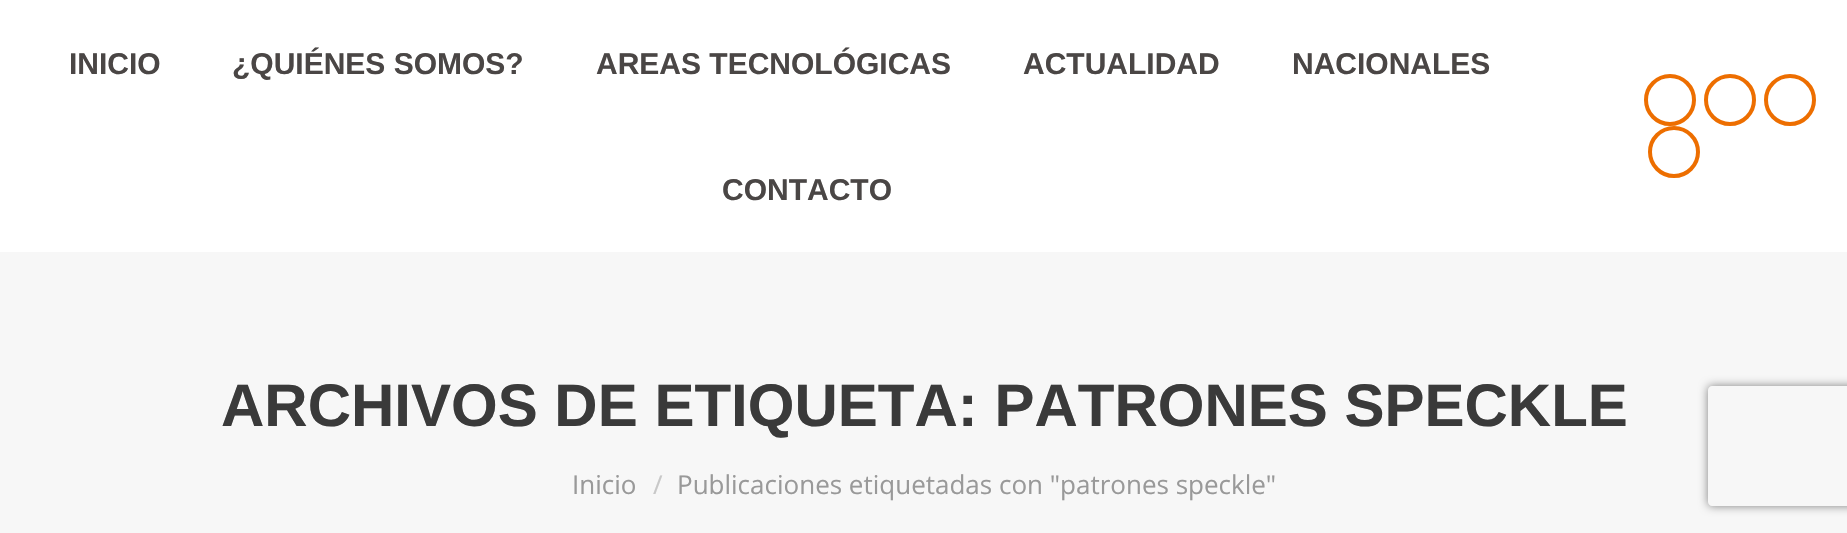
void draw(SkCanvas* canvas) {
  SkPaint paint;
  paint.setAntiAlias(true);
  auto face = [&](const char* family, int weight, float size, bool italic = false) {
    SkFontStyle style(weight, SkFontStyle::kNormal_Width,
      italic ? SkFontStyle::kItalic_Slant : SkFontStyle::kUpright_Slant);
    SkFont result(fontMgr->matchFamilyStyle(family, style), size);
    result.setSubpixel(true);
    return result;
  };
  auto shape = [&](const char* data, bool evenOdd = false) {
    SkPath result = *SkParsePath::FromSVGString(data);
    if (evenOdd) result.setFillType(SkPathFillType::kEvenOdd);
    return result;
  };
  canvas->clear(0xffffffff);
  paint.setStroke(true);
  paint.setStrokeWidth(4);
  paint.setColor(0xffed6e00);
  canvas->drawCircle(1670, 100, 24, paint);
  canvas->drawCircle(1730, 100, 24, paint);
  canvas->drawCircle(1790, 100, 24, paint);
  canvas->drawCircle(1674, 152, 24, paint);
  paint.setStroke(false);
  paint.setColor(0xfff7f7f7);
  canvas->drawRect(SkRect::MakeXYWH(0, 252, 1847, 281), paint);
  canvas->save();
  canvas->clipPath(shape("M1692 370H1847V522H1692ZM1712 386H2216C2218 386 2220 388 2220 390V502C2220 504 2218 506 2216 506H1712C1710 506 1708 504 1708 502V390C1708 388 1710 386 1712 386Z", true), true);
  paint.setColor(0xff808080);
  paint.setMaskFilter(SkMaskFilter::MakeBlur(kNormal_SkBlurStyle, 5));
  canvas->drawRoundRect(SkRect::MakeXYWH(1708, 386, 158, 120), 4, 4, paint);
  paint.setMaskFilter(nullptr);
  canvas->restore();
  auto f0 = face("Liberation Sans", 700, 30);
  paint.setColor(0xff4a4645);
  {
    const struct { const char* s; float x, y; } items[] = {
      {"INICIO", 69, 74},
      {"¿QUIÉNES SOMOS?", 232, 74},
      {"AREAS TECNOLÓGICAS", 596, 74},
      {"ACTUALIDAD", 1023, 74},
      {"NACIONALES", 1292, 74},
      {"CONTACTO", 722, 200},
    };
    for (auto [s, x, y] : items) {
      canvas->drawString(s, x, y, f0, paint);
    }
  }
  auto f1 = face("Liberation Sans", 700, 60);
  paint.setColor(0xff3a3a3a);
  canvas->drawString("ARCHIVOS DE ETIQUETA: PATRONES SPECKLE", 221, 426, f1, paint);
  auto f2 = face("Open Sans", 400, 26);
  paint.setColor(0xff999999);
  canvas->drawString("Inicio", 572, 494, f2, paint);
  paint.setColor(0xffc8c8c8);
  canvas->drawString("/", 653, 494, f2, paint);
  paint.setColor(0xff999999);
  canvas->drawString("Publicaciones etiquetadas con \"patrones speckle\"", 677, 494, f2, paint);
}
